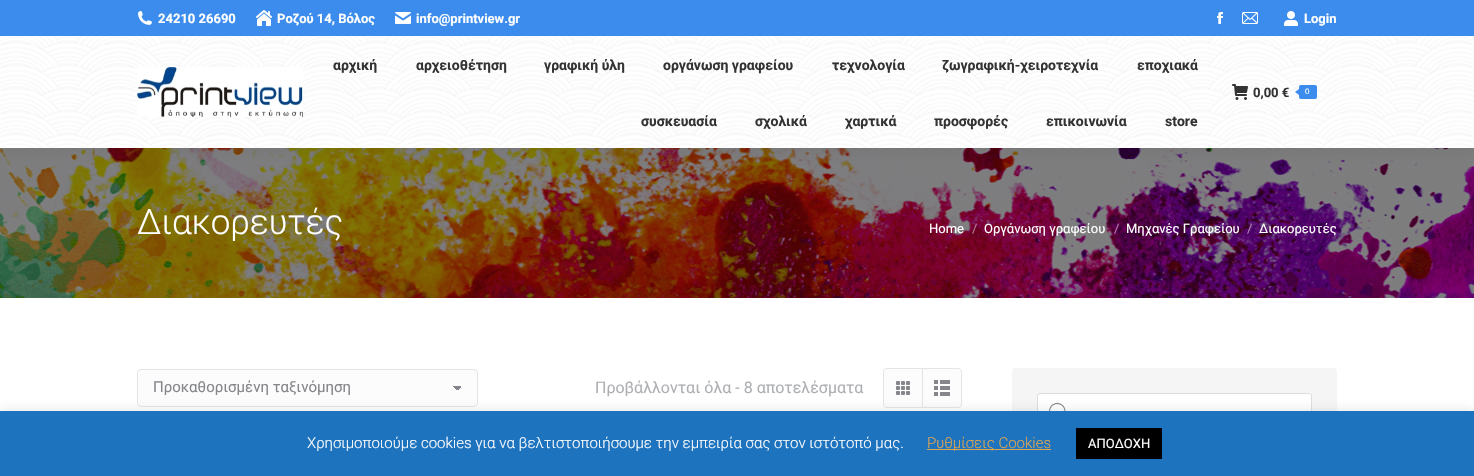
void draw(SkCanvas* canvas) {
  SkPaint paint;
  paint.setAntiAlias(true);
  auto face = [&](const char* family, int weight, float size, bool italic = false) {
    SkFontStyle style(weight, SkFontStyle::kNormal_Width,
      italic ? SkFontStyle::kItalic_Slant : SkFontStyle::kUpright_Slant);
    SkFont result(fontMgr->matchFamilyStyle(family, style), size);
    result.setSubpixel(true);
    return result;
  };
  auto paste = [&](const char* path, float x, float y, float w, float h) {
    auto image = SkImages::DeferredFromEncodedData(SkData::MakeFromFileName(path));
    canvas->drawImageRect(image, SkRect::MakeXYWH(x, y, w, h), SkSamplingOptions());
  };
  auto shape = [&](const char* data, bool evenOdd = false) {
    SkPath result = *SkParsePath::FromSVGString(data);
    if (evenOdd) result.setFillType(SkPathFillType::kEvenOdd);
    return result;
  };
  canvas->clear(0xffffffff);
  paste("img/10.png", 0, 148, 1474, 150);
  paint.setColor(0x12000000);
  paint.setMaskFilter(SkMaskFilter::MakeBlur(kNormal_SkBlurStyle, 7.5f));
  canvas->drawRect(SkRect::MakeXYWH(-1, -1, 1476, 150), paint);
  paint.setMaskFilter(nullptr);
  paste("img/1.png", 0, 36, 1474, 112);
  paint.setColor(0xff3b8ced);
  canvas->drawRect(SkRect::MakeXYWH(0, 0, 1474, 36), paint);
  paste("img/2.png", 138, 11, 14, 14);
  paste("img/3.png", 256, 10, 16, 16);
  paste("img/4.png", 395, 12, 16, 12);
  paste("img/5.png", 1217, 12, 6, 12);
  paste("img/6.png", 1242, 12, 16, 12);
  paste("img/7.png", 1284, 11, 14, 15);
  paste("img/8.png", 137, 67, 166, 50);
  paste("img/9.png", 1232, 84, 16, 16);
  canvas->drawRoundRect(SkRect::MakeXYWH(1299, 85, 18, 14), 2, 2, paint);
  canvas->drawPath(shape("M1299 89V95L1295 92Z"), paint);
  paint.setColor(0xfffcfcfc);
  canvas->drawRoundRect(SkRect::MakeXYWH(137, 369, 341, 38), 4, 4, paint);
  {
    const SkColor colors[] = {0xff85868c, 0xfffcfcfc};
    const float stops[] = {0.5f, 0.5f};
    const SkPoint ends[] = {{457, 386}, {462, 391}};
    paint.setShader(SkGradientShader::MakeLinear(ends, colors, stops, 2, SkTileMode::kClamp));
    paint.setAlpha(255);
  }
  canvas->drawRect(SkRect::MakeXYWH(457, 386, 5, 4), paint);
  {
    const SkColor colors[] = {0xfffcfcfc, 0xff85868c};
    const float stops[] = {0.5f, 0.5f};
    const SkPoint ends[] = {{452, 391}, {457, 386}};
    paint.setShader(SkGradientShader::MakeLinear(ends, colors, stops, 2, SkTileMode::kClamp));
    paint.setAlpha(255);
  }
  canvas->drawRect(SkRect::MakeXYWH(452, 386, 5, 4), paint);
  paint.setStroke(true);
  paint.setStrokeWidth(1);
  paint.setShader(nullptr);
  paint.setColor(0xffe4e4e4);
  canvas->drawRoundRect(SkRect::MakeXYWH(137.5f, 369.5f, 340, 37), 3.5f, 3.5f, paint);
  paint.setStroke(false);
  paint.setColor(0xfffcfcfc);
  canvas->drawPath(shape("M887 368H922V408H887C885 408 883 406 883 404V372C883 370 885 368 887 368Z"), paint);
  paint.setColor(0xffe4e4e4);
  canvas->drawPath(shape("M887 368H922V408H887C885 408 883 406 883 404V372C883 370 885 368 887 368ZM887 369H922V407H887C885 407 884 406 884 404V372C884 370 885 369 887 369Z", true), paint);
  paste("img/11.png", 896, 381, 14, 14);
  paint.setColor(0xfffcfcfc);
  canvas->drawPath(shape("M922.5 368.5H958C960 368.5 961.5 370 961.5 372V404C961.5 406 960 407.5 958 407.5H922.5Z"), paint);
  paint.setStroke(true);
  paint.setColor(0xffe4e4e4);
  canvas->drawPath(shape("M922.5 368.5H958C960 368.5 961.5 370 961.5 372V404C961.5 406 960 407.5 958 407.5H922.5Z"), paint);
  paste("img/12.png", 934, 380, 16, 16);
  paint.setStroke(false);
  paint.setColor(0xfff5f5f5);
  canvas->drawRoundRect(SkRect::MakeXYWH(1012, 368, 325, 90), 4, 4, paint);
  paint.setColor(0xffffffff);
  canvas->drawRoundRect(SkRect::MakeXYWH(1037.5f, 393.5f, 274, 39), 2.5f, 2.5f, paint);
  paint.setStroke(true);
  paint.setColor(0xffdddddd);
  canvas->drawRoundRect(SkRect::MakeXYWH(1037.5f, 393.5f, 274, 39), 2.5f, 2.5f, paint);
  paste("img/13.png", 1049, 403, 17, 8);
  paint.setStroke(false);
  paint.setColor(0x4dacabab);
  paint.setMaskFilter(SkMaskFilter::MakeBlur(kNormal_SkBlurStyle, 5));
  canvas->drawRect(SkRect::MakeXYWH(0, 410, 1474, 65), paint);
  paint.setMaskFilter(nullptr);
  {
    const struct { float x, y, w, h; SkColor color; } items[] = {
      {0, 411, 1474, 65, 0xff1e73be},
      {927, 449, 124, 1, 0xffdda54f},
      {1076, 428, 86, 31, 0xff000000},
    };
    for (auto [x, y, w, h, color] : items) {
      paint.setColor(color);
      canvas->drawRect(SkRect::MakeXYWH(x, y, w, h), paint);
    }
  }
  auto f0 = face("Roboto", 700, 13);
  paint.setColor(0xffffffff);
  {
    const struct { const char* s; float x, y; } items[] = {
      {"24210 26690", 158, 23},
      {"Ροζού 14, Βόλος", 277, 23},
      {"info@printview.gr", 416, 23},
      {"Login", 1304, 23},
    };
    for (auto [s, x, y] : items) {
      canvas->drawString(s, x, y, f0, paint);
    }
  }
  auto f1 = face("Roboto", 700, 14);
  paint.setColor(0xff333333);
  {
    const struct { const char* s; float x, y; } items[] = {
      {"αρχική", 333, 70},
      {"αρχειοθέτηση", 416, 70},
      {"γραφική ύλη", 544, 70},
      {"οργάνωση γραφείου", 663, 70},
      {"τεχνολογία", 832, 70},
      {"ζωγραφική-χειροτεχνία", 942, 70},
      {"εποχιακά", 1137, 70},
      {"συσκευασία", 641, 126},
      {"σχολικά", 755, 126},
      {"χαρτικά", 845, 126},
      {"προσφορές", 934, 126},
      {"επικοινωνία", 1046, 126},
      {"store", 1165, 126},
    };
    for (auto [s, x, y] : items) {
      canvas->drawString(s, x, y, f1, paint);
    }
  }
  canvas->drawString("0,00 €", 1253, 97, f0, paint);
  auto f2 = face("Liberation Sans", 400, 8);
  paint.setColor(0xffffffff);
  canvas->drawString("0", 1305, 94, f2, paint);
  auto f3 = face("Roboto", 300, 35);
  canvas->drawString("Διακορευτές", 137, 234, f3, paint);
  auto f4 = face("Roboto", 400, 13);
  canvas->drawString("Home", 929, 233, f4, paint);
  paint.setColor(0xffb78097);
  canvas->drawString("/", 972, 233, f4, paint);
  paint.setColor(0xffffffff);
  canvas->drawString("Οργάνωση γραφείου", 984, 233, f4, paint);
  paint.setColor(0xffae80a6);
  canvas->drawString("/", 1114, 233, f4, paint);
  paint.setColor(0xffffffff);
  canvas->drawString("Μηχανές Γραφείου", 1126, 233, f4, paint);
  paint.setColor(0xffab86b6);
  canvas->drawString("/", 1247, 233, f4, paint);
  paint.setColor(0xffffffff);
  canvas->drawString("Διακορευτές", 1259, 233, f4, paint);
  auto f5 = face("Roboto", 400, 15);
  paint.setColor(0xff85868c);
  canvas->drawString("Προκαθορισμένη ταξινόμηση", 153, 392, f5, paint);
  auto f6 = face("Roboto", 400, 16);
  paint.setColor(0xffadafb3);
  canvas->drawString("Προβάλλονται όλα - 8 αποτελέσματα", 595, 393, f6, paint);
  auto f7 = face("Roboto", 300, 15);
  paint.setColor(0xffffffff);
  canvas->drawString("Χρησιμοποιούμε cookies για να βελτιστοποιήσουμε την εμπειρία σας στον ιστότοπό μας.", 307, 448, f7, paint);
  paint.setColor(0xffdda54f);
  canvas->drawString("Ρυθμίσεις Cookies", 927, 448, f7, paint);
  paint.setColor(0xffffffff);
  canvas->drawString("ΑΠΟΔΟΧΗ", 1088, 448, f4, paint);
}
